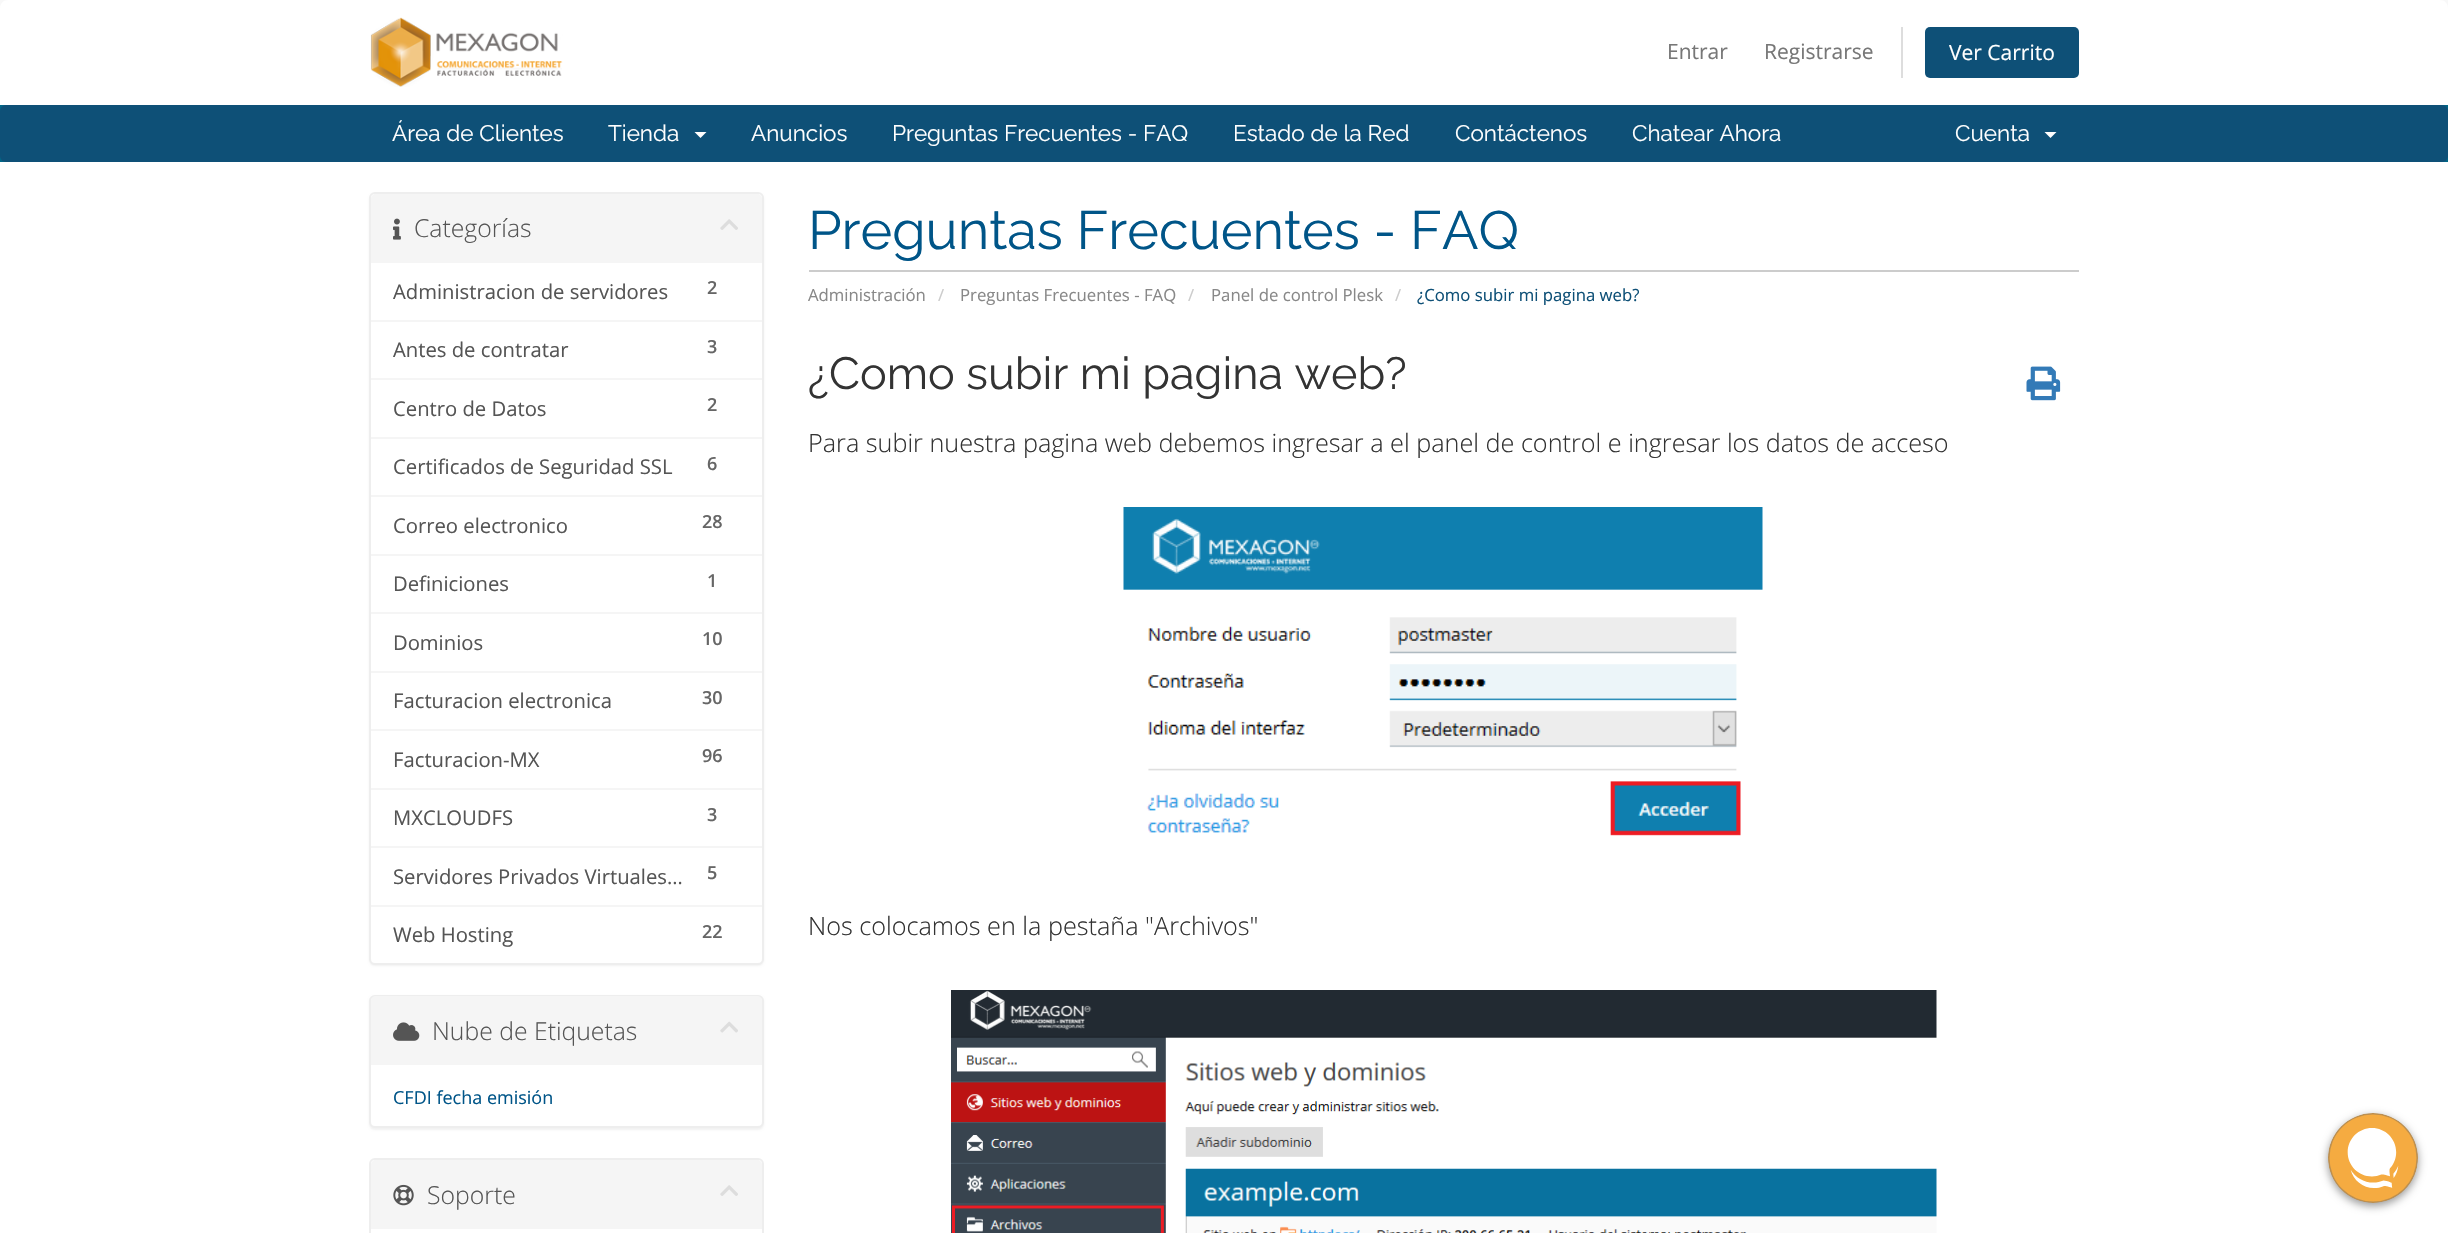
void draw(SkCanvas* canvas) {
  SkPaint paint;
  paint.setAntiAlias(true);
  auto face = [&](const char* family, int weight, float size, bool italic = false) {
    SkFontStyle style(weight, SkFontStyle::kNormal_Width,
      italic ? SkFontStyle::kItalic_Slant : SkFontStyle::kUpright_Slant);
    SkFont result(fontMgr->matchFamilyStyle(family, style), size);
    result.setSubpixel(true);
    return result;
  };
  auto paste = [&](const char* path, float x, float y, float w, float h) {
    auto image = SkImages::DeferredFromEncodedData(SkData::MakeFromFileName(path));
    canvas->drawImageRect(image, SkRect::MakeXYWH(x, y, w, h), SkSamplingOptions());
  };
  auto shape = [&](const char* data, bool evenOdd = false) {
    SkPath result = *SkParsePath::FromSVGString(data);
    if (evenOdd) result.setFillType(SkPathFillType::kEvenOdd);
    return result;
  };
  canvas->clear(0xfff8f8f8);
  paint.setColor(0xffffffff);
  canvas->drawPath(shape("M8 0H2440C2444.5 0 2448 3.5 2448 8V105H0V8C0 3.5 3.5 0 8 0Z"), paint);
  paste("img/1.png", 370, 17, 193, 70);
  paint.setColor(0xffdddddd);
  canvas->drawRect(SkRect::MakeXYWH(1901, 27, 2, 51), paint);
  paint.setColor(0xff0e5077);
  canvas->drawRoundRect(SkRect::MakeXYWH(1925, 27, 154, 51), 5, 5, paint);
  paint.setColor(0xff006687);
  canvas->drawRect(SkRect::MakeXYWH(0, 105, 2448, 57), paint);
  paint.setColor(0xff0e5077);
  canvas->drawRoundRect(SkRect::MakeXYWH(0, 105, 2448, 57), 6, 6, paint);
  paint.setColor(0xffffffff);
  canvas->drawPath(shape("M694.5 132H706.5L700.5 138Z"), paint);
  canvas->drawPath(shape("M2044.5 132H2056.5L2050.5 138Z"), paint);
  canvas->drawRect(SkRect::MakeXYWH(0, 162, 2448, 1071), paint);
  paint.setColor(0x0d000000);
  paint.setMaskFilter(SkMaskFilter::MakeBlur(kNormal_SkBlurStyle, 1));
  canvas->drawRoundRect(SkRect::MakeXYWH(369, 194, 395, 772), 6, 6, paint);
  paint.setMaskFilter(nullptr);
  paint.setColor(0xffffffff);
  canvas->drawRoundRect(SkRect::MakeXYWH(370, 193, 393, 771), 5, 5, paint);
  paint.setStroke(true);
  paint.setStrokeWidth(2);
  paint.setColor(0xffeeeeee);
  canvas->drawRoundRect(SkRect::MakeXYWH(370, 193, 393, 771), 5, 5, paint);
  paint.setStroke(false);
  paint.setColor(0xfff5f5f5);
  canvas->drawPath(shape("M376 194H757C760 194 762 196 762 199V263H371V199C371 196 373 194 376 194Z"), paint);
  paste("img/2.png", 393, 218, 8, 22);
  paste("img/3.png", 720, 219, 18, 11);
  {
    const struct { float x, y, w, h; SkColor color; } items[] = {
      {371, 320, 391, 2, 0xfff5f5f5},
      {371, 378, 391, 2, 0xfff5f5f5},
      {371, 437, 391, 2, 0xfff5f5f5},
      {371, 495, 391, 2, 0xfff5f5f5},
      {371, 554, 391, 2, 0xfff5f5f5},
      {371, 612, 391, 2, 0xfff5f5f5},
      {371, 671, 391, 2, 0xfff5f5f5},
      {371, 729, 391, 2, 0xfff5f5f5},
      {371, 788, 391, 2, 0xfff5f5f5},
      {371, 846, 391, 2, 0xfff5f5f5},
      {371, 905, 391, 2, 0xfff5f5f5},
      {809, 270, 1270, 2, 0xffcccccc},
    };
    for (auto [x, y, w, h, color] : items) {
      paint.setColor(color);
      canvas->drawRect(SkRect::MakeXYWH(x, y, w, h), paint);
    }
  }
  paste("img/4.png", 2026, 366, 35, 35);
  paste("img/5.png", 1123, 507, 640, 329);
  paste("img/6.png", 951, 990, 986, 243);
  paint.setColor(0x0d000000);
  paint.setMaskFilter(SkMaskFilter::MakeBlur(kNormal_SkBlurStyle, 1));
  canvas->drawRoundRect(SkRect::MakeXYWH(369, 996, 395, 134), 6, 6, paint);
  paint.setMaskFilter(nullptr);
  paint.setColor(0xffffffff);
  canvas->drawRoundRect(SkRect::MakeXYWH(370, 996, 393, 131), 5, 5, paint);
  paint.setStroke(true);
  paint.setColor(0xffeeeeee);
  canvas->drawRoundRect(SkRect::MakeXYWH(370, 996, 393, 131), 5, 5, paint);
  paint.setStroke(false);
  paint.setColor(0xfff5f5f5);
  canvas->drawPath(shape("M376 996H757C760 996 762 998 762 1001V1065H371V1001C371 998 373 996 376 996Z"), paint);
  paste("img/7.png", 393, 1022, 27, 19);
  paste("img/8.png", 720, 1021, 18, 12);
  paint.setStroke(true);
  paint.setColor(0xffeeeeee);
  canvas->drawRoundRect(SkRect::MakeXYWH(370, 1159, 393, 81), 5, 5, paint);
  paint.setStroke(false);
  paint.setColor(0xfff5f5f5);
  canvas->drawPath(shape("M376 1160H757C760 1160 762 1162 762 1165V1229H371V1165C371 1162 373 1160 376 1160Z"), paint);
  paste("img/9.png", 393, 1184, 21, 22);
  paste("img/3.png", 720, 1185, 18, 11);
  paint.setColor(0x66000000);
  paint.setMaskFilter(SkMaskFilter::MakeBlur(kNormal_SkBlurStyle, 4.5f));
  canvas->drawRoundRect(SkRect::MakeXYWH(2328, 1116, 90, 90), 45, 45, paint);
  paint.setMaskFilter(nullptr);
  paste("img/10.png", 2328, 1113, 90, 90);
  auto f0 = face("Open Sans", 400, 21);
  paint.setColor(0xff777777);
  canvas->drawString("Entrar", 1667, 59, f0, paint);
  canvas->drawString("Registrarse", 1764, 59, f0, paint);
  paint.setColor(0xffffffff);
  canvas->drawString("Ver Carrito", 1949, 60, f0, paint);
  auto f1 = face("Raleway", 400, 22.5f);
  {
    const struct { const char* s; float x, y; } items[] = {
      {"Área de Clientes", 392, 141},
      {"Tienda", 608, 141},
      {"Anuncios", 751, 141},
      {"Preguntas Frecuentes - FAQ", 892, 141},
      {"Estado de la Red", 1233, 141},
      {"Contáctenos", 1455, 141},
      {"Chatear Ahora", 1632, 141},
      {"Cuenta", 1955, 141},
    };
    for (auto [s, x, y] : items) {
      canvas->drawString(s, x, y, f1, paint);
    }
  }
  auto f2 = face("Open Sans", 300, 24.75f);
  paint.setColor(0xff555555);
  canvas->drawString("Categorías", 414, 237, f2, paint);
  auto f3 = face("Open Sans", 400, 20.25f);
  canvas->drawString("Administracion de servidores", 393, 299, f3, paint);
  auto f4 = face("Open Sans", 600, 18);
  paint.setColor(0xff666666);
  canvas->drawString("2", 707, 294, f4, paint);
  paint.setColor(0xff555555);
  canvas->drawString("Antes de contratar", 393, 357, f3, paint);
  paint.setColor(0xff666666);
  canvas->drawString("3", 707, 353, f4, paint);
  paint.setColor(0xff555555);
  canvas->drawString("Centro de Datos", 393, 416, f3, paint);
  paint.setColor(0xff666666);
  canvas->drawString("2", 707, 411, f4, paint);
  paint.setColor(0xff555555);
  canvas->drawString("Certificados de Seguridad SSL", 393, 474, f3, paint);
  paint.setColor(0xff666666);
  canvas->drawString("6", 707, 470, f4, paint);
  paint.setColor(0xff555555);
  canvas->drawString("Correo electronico", 393, 533, f3, paint);
  paint.setColor(0xff666666);
  canvas->drawString("28", 702, 528, f4, paint);
  paint.setColor(0xff555555);
  canvas->drawString("Definiciones", 393, 591, f3, paint);
  paint.setColor(0xff666666);
  canvas->drawString("1", 707, 587, f4, paint);
  paint.setColor(0xff555555);
  canvas->drawString("Dominios", 393, 650, f3, paint);
  paint.setColor(0xff666666);
  canvas->drawString("10", 702, 645, f4, paint);
  paint.setColor(0xff555555);
  canvas->drawString("Facturacion electronica", 393, 708, f3, paint);
  paint.setColor(0xff666666);
  canvas->drawString("30", 702, 704, f4, paint);
  paint.setColor(0xff555555);
  canvas->drawString("Facturacion-MX", 393, 767, f3, paint);
  paint.setColor(0xff666666);
  canvas->drawString("96", 702, 762, f4, paint);
  paint.setColor(0xff555555);
  canvas->drawString("MXCLOUDFS", 393, 825, f3, paint);
  paint.setColor(0xff666666);
  canvas->drawString("3", 707, 821, f4, paint);
  paint.setColor(0xff555555);
  canvas->drawString("Servidores Privados Virtuales…", 393, 884, f3, paint);
  paint.setColor(0xff666666);
  canvas->drawString("5", 707, 879, f4, paint);
  paint.setColor(0xff555555);
  canvas->drawString("Web Hosting", 393, 942, f3, paint);
  paint.setColor(0xff666666);
  canvas->drawString("22", 702, 938, f4, paint);
  auto f5 = face("Raleway", 400, 54);
  paint.setColor(0xff005588);
  canvas->drawString("Preguntas Frecuentes - FAQ", 808, 249, f5, paint);
  auto f6 = face("Open Sans", 400, 16.75f);
  paint.setColor(0xff888888);
  canvas->drawString("Administración", 808, 301, f6, paint);
  paint.setColor(0xffcccccc);
  canvas->drawString("/", 938, 301, f6, paint);
  paint.setColor(0xff888888);
  canvas->drawString("Preguntas Frecuentes - FAQ", 960, 301, f6, paint);
  paint.setColor(0xffcccccc);
  canvas->drawString("/", 1188, 301, f6, paint);
  paint.setColor(0xff888888);
  canvas->drawString("Panel de control Plesk", 1211, 301, f6, paint);
  paint.setColor(0xffcccccc);
  canvas->drawString("/", 1395, 301, f6, paint);
  paint.setColor(0xff0e5077);
  canvas->drawString("¿Como subir mi pagina web?", 1417, 301, f6, paint);
  auto f7 = face("Raleway", 400, 45);
  paint.setColor(0xff333333);
  canvas->drawString("¿Como subir mi pagina web?", 808, 389, f7, paint);
  auto f8 = face("Open Sans", 300, 25.2f);
  canvas->drawString("Para subir nuestra pagina web debemos ingresar a el panel de control e ingresar los datos de acceso", 808, 452, f8, paint);
  canvas->drawString("Nos colocamos en la pestaña \"Archivos\"", 808, 935, f8, paint);
  paint.setColor(0xff555555);
  canvas->drawString("Nube de Etiquetas", 432, 1040, f2, paint);
  auto f9 = face("Open Sans", 400, 18);
  paint.setColor(0xff005588);
  canvas->drawString("CFDI fecha emisión", 393, 1104, f9, paint);
  paint.setColor(0xff555555);
  canvas->drawString("Soporte", 427, 1204, f2, paint);
}
